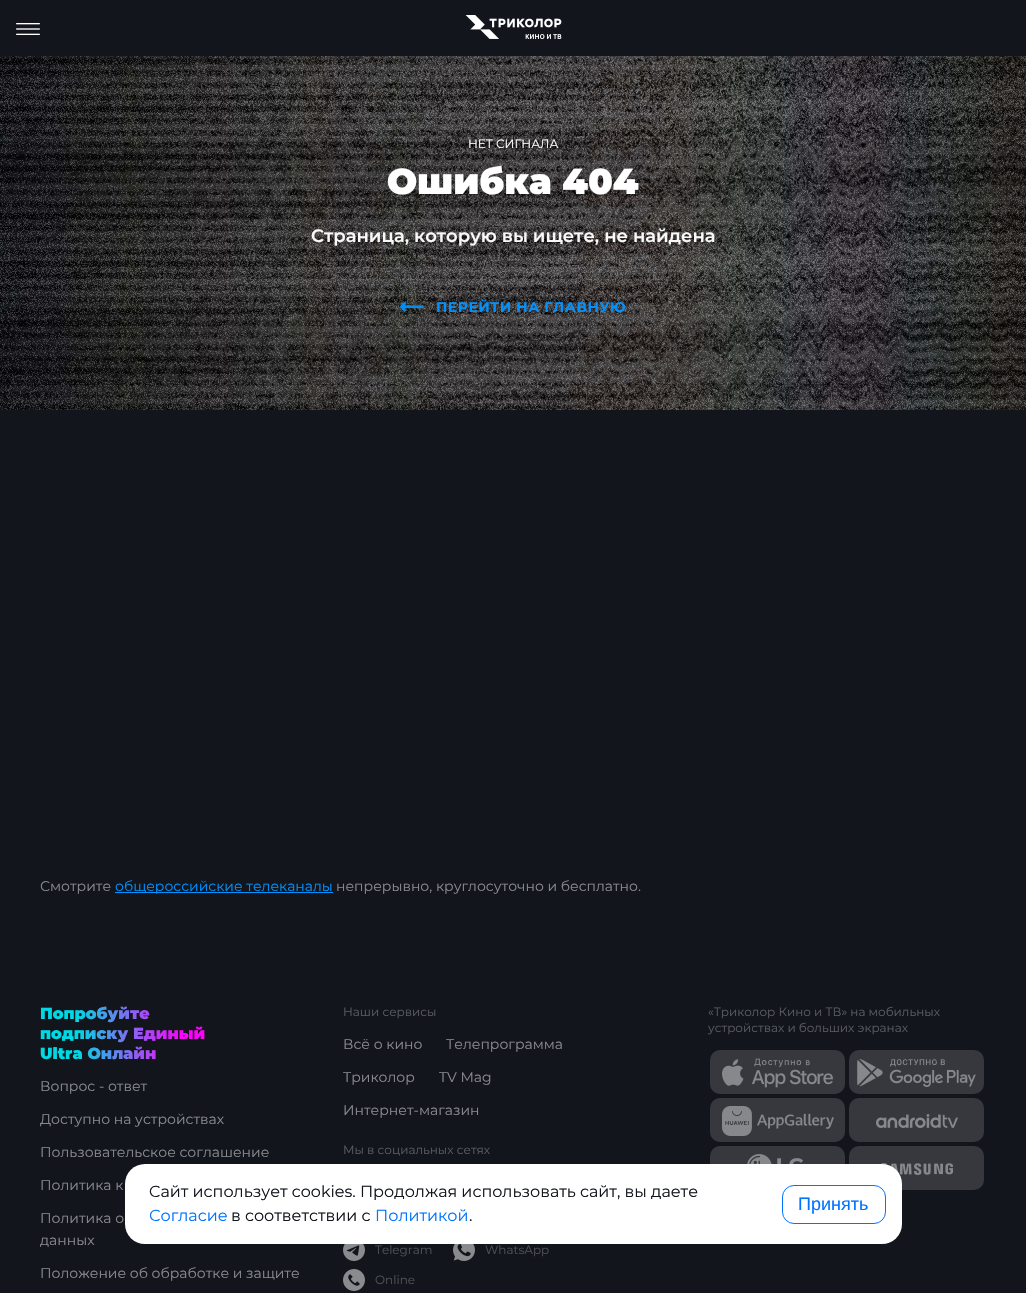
void draw(SkCanvas* canvas) {
  SkPaint paint;
  paint.setAntiAlias(true);
  auto face = [&](const char* family, int weight, float size, bool italic = false) {
    SkFontStyle style(weight, SkFontStyle::kNormal_Width,
      italic ? SkFontStyle::kItalic_Slant : SkFontStyle::kUpright_Slant);
    SkFont result(fontMgr->matchFamilyStyle(family, style), size);
    result.setSubpixel(true);
    return result;
  };
  auto writeSpaced = [&](const char* s, float x, float y, const SkFont& font, const SkPaint& ink, float letter, float word) {
    std::vector<SkGlyphID> glyphs(font.countText(s, strlen(s), SkTextEncoding::kUTF8));
    std::vector<float> xs(glyphs.size());
    font.textToGlyphs(s, strlen(s), SkTextEncoding::kUTF8, glyphs);
    font.getXPos(glyphs, xs, x);
    float extra = 0;
    for (size_t i = 0; i < glyphs.size(); i++) {
      xs[i] += extra;
      extra += letter + word * (glyphs[i] == font.unicharToGlyph(' '));
    }
    canvas->drawTextBlob(SkTextBlob::MakeFromPosHGlyphs(glyphs, xs, y, font), 0, 0, ink);
  };
  auto paste = [&](const char* path, float x, float y, float w, float h) {
    auto image = SkImages::DeferredFromEncodedData(SkData::MakeFromFileName(path));
    canvas->drawImageRect(image, SkRect::MakeXYWH(x, y, w, h), SkSamplingOptions());
  };
  canvas->clear(0xff12151c);
  paste("img/1.png", 16, 23, 24, 12);
  paste("img/2.png", 465, 15, 97, 24);
  paste("img/3.png", 0, 56, 1026, 354);
  paste("img/4.png", 0, 56, 1026, 354);
  paste("img/5.png", 400, 302, 24, 10);
  paint.setColor(0xff0092ff);
  canvas->drawRect(SkRect::MakeXYWH(115, 892, 218, 1), paint);
  paint.setColor(0xff36383e);
  canvas->drawRoundRect(SkRect::MakeXYWH(710, 1050, 135, 44), 10, 10, paint);
  paste("img/6.png", 722, 1058, 111, 30);
  canvas->drawRoundRect(SkRect::MakeXYWH(849, 1050, 135, 44), 10, 10, paint);
  paste("img/7.png", 857, 1059, 119, 28);
  canvas->drawRoundRect(SkRect::MakeXYWH(710, 1098, 135, 44), 10, 10, paint);
  paste("img/8.png", 722, 1106, 112, 30);
  canvas->drawRoundRect(SkRect::MakeXYWH(849, 1098, 135, 44), 10, 10, paint);
  paste("img/9.png", 876, 1114, 82, 14);
  canvas->drawRoundRect(SkRect::MakeXYWH(710, 1146, 135, 44), 10, 10, paint);
  paste("img/10.png", 747, 1154, 56, 10);
  canvas->drawRoundRect(SkRect::MakeXYWH(849, 1146, 135, 44), 10, 10, paint);
  paste("img/11.png", 881, 1163, 72, 12);
  paste("img/12.png", 343, 1244, 22, 17);
  paste("img/13.png", 453, 1244, 22, 17);
  paste("img/14.png", 343, 1269, 22, 22);
  paint.setColor(0xffffffff);
  canvas->drawRoundRect(SkRect::MakeXYWH(125, 1164, 777, 80), 20, 20, paint);
  paint.setStroke(true);
  paint.setStrokeWidth(1);
  paint.setColor(0xff0073ff);
  canvas->drawRoundRect(SkRect::MakeXYWH(782.5f, 1185.5f, 103, 38), 11.5f, 11.5f, paint);
  auto f0 = face("Montserrat", 400, 12);
  paint.setStroke(false);
  paint.setColor(0xffffffff);
  canvas->drawString("НЕТ СИГНАЛА", 468, 148, f0, paint);
  auto f1 = face("Montserrat", 900, 36);
  canvas->drawString("Ошибка 404", 387, 194, f1, paint);
  auto f2 = face("Montserrat", 600, 18);
  paint.setColor(0xfff9f9f9);
  canvas->drawString("Страница, которую вы ищете, не найдена", 311, 242, f2, paint);
  auto f3 = face("Montserrat", 700, 14);
  paint.setColor(0xff0092ff);
  writeSpaced("ПЕРЕЙТИ НА ГЛАВНУЮ", 436, 312, f3, paint, 0.5f, 0);
  auto f4 = face("Montserrat", 400, 14);
  paint.setColor(0xff898a8e);
  canvas->drawString("Смотрите", 40, 891, f4, paint);
  paint.setColor(0xff0092ff);
  canvas->drawString("общероссийские телеканалы", 115, 891, f4, paint);
  paint.setColor(0xff898a8e);
  canvas->drawString("непрерывно, круглосуточно и бесплатно.", 336, 891, f4, paint);
  auto f5 = face("Montserrat", 900, 16);
  {
    const SkColor colors[] = {0xff00d8e3, 0xffff00ff};
    const float stops[] = {0.2f, 0.79f};
    const SkPoint ends[] = {{40, 1014}, {220, 1014}};
    paint.setShader(SkGradientShader::MakeLinear(ends, colors, stops, 2, SkTileMode::kClamp));
    paint.setAlpha(255);
  }
  canvas->drawString("Попробуйте", 40, 1019, f5, paint);
  {
    const SkColor colors[] = {0xff00d8e3, 0xffff00ff};
    const float stops[] = {0.2f, 0.79f};
    const SkPoint ends[] = {{40, 1034}, {220, 1034}};
    paint.setShader(SkGradientShader::MakeLinear(ends, colors, stops, 2, SkTileMode::kClamp));
    paint.setAlpha(255);
  }
  canvas->drawString("подписку Единый", 40, 1039, f5, paint);
  {
    const SkColor colors[] = {0xff00d8e3, 0xffff00ff};
    const float stops[] = {0.2f, 0.79f};
    const SkPoint ends[] = {{40, 1054}, {220, 1054}};
    paint.setShader(SkGradientShader::MakeLinear(ends, colors, stops, 2, SkTileMode::kClamp));
    paint.setAlpha(255);
  }
  canvas->drawString("Ultra Онлайн", 40, 1059, f5, paint);
  paint.setShader(nullptr);
  paint.setColor(0xff898a8e);
  {
    const struct { const char* s; float x, y; } items[] = {
      {"Вопрос - ответ", 40, 1091},
      {"Доступно на устройствах", 40, 1124},
      {"Пользовательское соглашение", 40, 1157},
      {"Политика к", 40, 1190},
      {"Политика о", 40, 1223},
      {"данных", 40, 1245},
      {"Положение об обработке и защите", 40, 1278},
    };
    for (auto [s, x, y] : items) {
      canvas->drawString(s, x, y, f4, paint);
    }
  }
  paint.setColor(0xff595b60);
  canvas->drawString("Наши сервисы", 343, 1016, f0, paint);
  paint.setColor(0xff898a8e);
  {
    const struct { const char* s; float x, y; } items[] = {
      {"Всё о кино", 343, 1049},
      {"Телепрограмма", 446, 1049},
      {"Триколор", 343, 1082},
      {"TV Mag", 439, 1082},
      {"Интернет-магазин", 343, 1115},
    };
    for (auto [s, x, y] : items) {
      canvas->drawString(s, x, y, f4, paint);
    }
  }
  paint.setColor(0xff595b60);
  {
    const struct { const char* s; float x, y; } items[] = {
      {"«Триколор Кино и ТВ» на мобильных", 708, 1016},
      {"устройствах и больших экранах", 708, 1032},
      {"Мы в социальных сетях", 343, 1154},
    };
    for (auto [s, x, y] : items) {
      canvas->drawString(s, x, y, f0, paint);
    }
  }
  paint.setColor(0xff4e5055);
  {
    const struct { const char* s; float x, y; } items[] = {
      {"Telegram", 375, 1254},
      {"WhatsApp", 485, 1254},
      {"Online", 375, 1284},
    };
    for (auto [s, x, y] : items) {
      canvas->drawString(s, x, y, f0, paint);
    }
  }
  auto f6 = face("Montserrat", 400, 16);
  paint.setColor(0xff12151c);
  canvas->drawString("Cайт использует cookies. Продолжая использовать сайт, вы даете", 149, 1197, f6, paint);
  paint.setColor(0xff0073ff);
  canvas->drawString("Согласие", 149, 1221, f6, paint);
  paint.setColor(0xff12151c);
  canvas->drawString("в соответствии с", 231, 1221, f6, paint);
  paint.setColor(0xff0073ff);
  canvas->drawString("Политикой", 375, 1221, f6, paint);
  paint.setColor(0xff12151c);
  canvas->drawString(".", 469, 1221, f6, paint);
  auto f7 = face("Liberation Sans", 400, 18);
  paint.setColor(0xff0073ff);
  canvas->drawString("Принять", 798, 1210, f7, paint);
}
